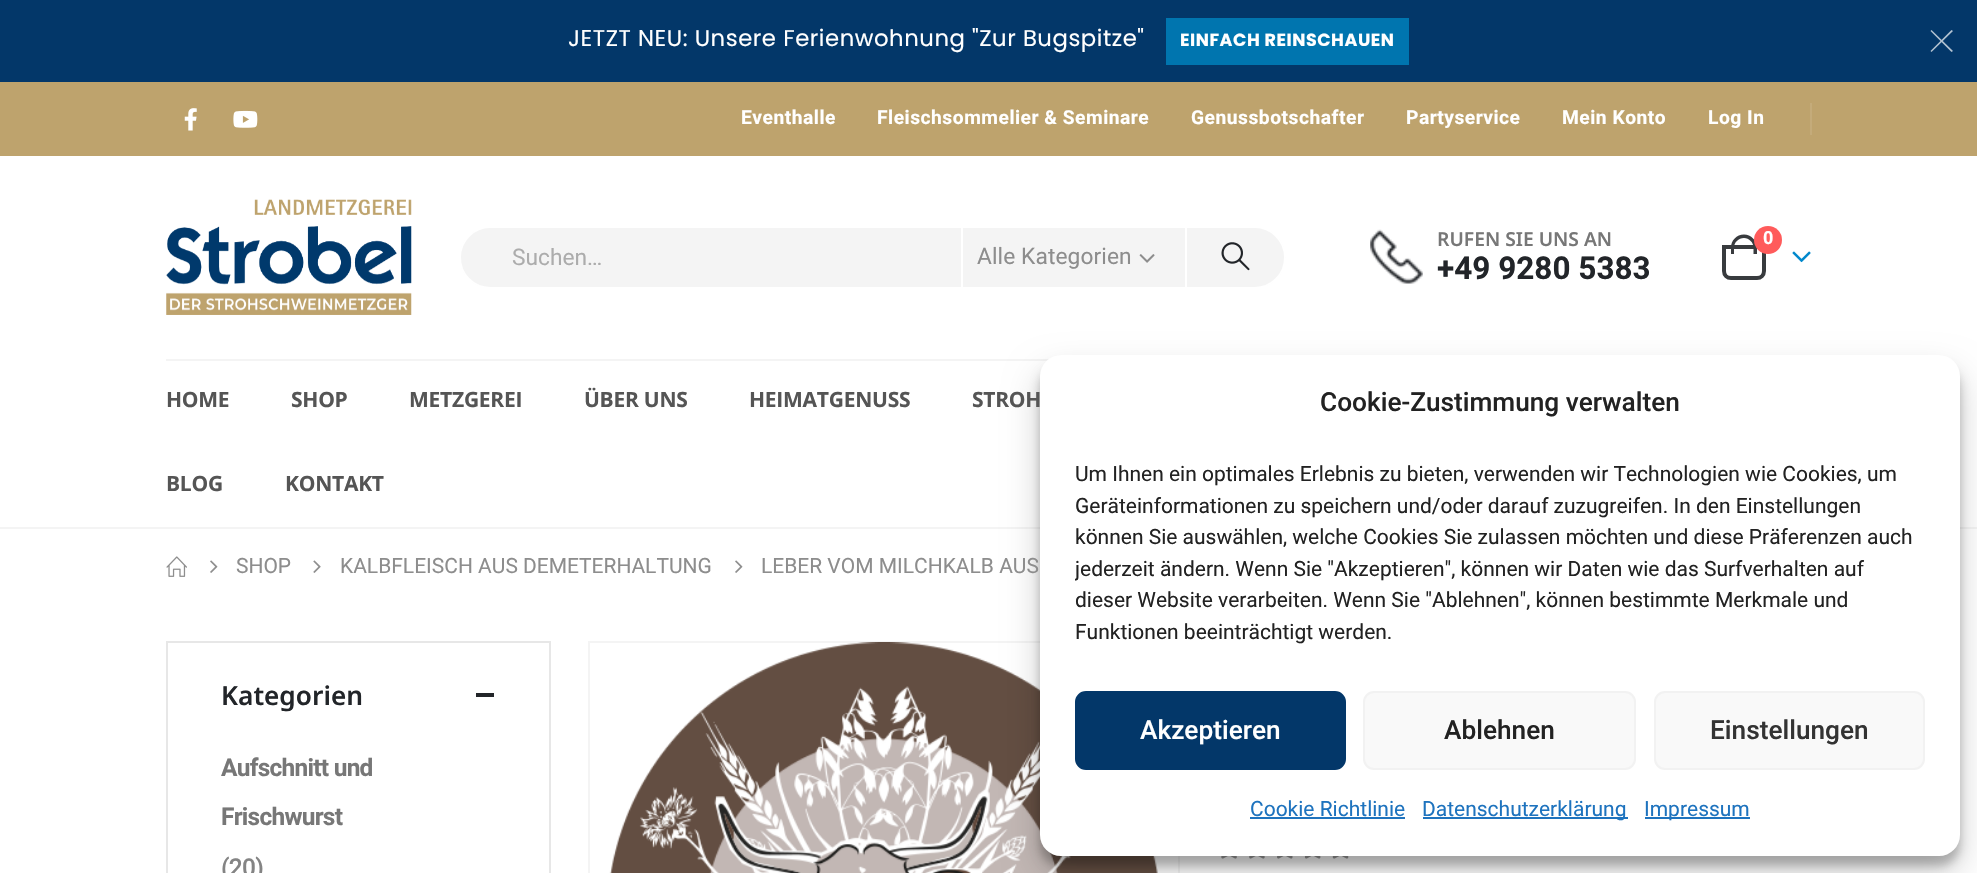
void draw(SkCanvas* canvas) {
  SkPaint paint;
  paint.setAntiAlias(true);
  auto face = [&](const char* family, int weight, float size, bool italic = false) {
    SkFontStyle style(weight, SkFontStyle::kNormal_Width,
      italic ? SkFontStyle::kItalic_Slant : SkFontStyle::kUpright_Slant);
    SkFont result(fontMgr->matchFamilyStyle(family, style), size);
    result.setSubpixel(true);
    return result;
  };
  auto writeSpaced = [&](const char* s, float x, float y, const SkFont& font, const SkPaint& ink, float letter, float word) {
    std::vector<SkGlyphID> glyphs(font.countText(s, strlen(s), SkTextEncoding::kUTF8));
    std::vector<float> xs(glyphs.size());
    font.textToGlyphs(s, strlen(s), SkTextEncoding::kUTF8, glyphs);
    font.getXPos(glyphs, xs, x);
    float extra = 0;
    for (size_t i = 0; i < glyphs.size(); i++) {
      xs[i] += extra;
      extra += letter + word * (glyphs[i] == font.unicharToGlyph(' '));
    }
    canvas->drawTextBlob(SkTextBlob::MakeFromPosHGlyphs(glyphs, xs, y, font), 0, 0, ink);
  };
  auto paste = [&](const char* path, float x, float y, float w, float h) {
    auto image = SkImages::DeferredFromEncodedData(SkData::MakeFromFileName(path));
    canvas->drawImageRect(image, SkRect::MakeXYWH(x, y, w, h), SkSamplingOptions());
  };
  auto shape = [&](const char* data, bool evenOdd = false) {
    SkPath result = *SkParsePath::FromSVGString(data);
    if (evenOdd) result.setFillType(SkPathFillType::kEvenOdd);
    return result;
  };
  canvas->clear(0xffffffff);
  paint.setColor(0xff033769);
  canvas->drawRect(SkRect::MakeXYWH(0, 0, 1977, 82), paint);
  paint.setColor(0xff0075af);
  canvas->drawRect(SkRect::MakeXYWH(1166, 18, 243, 47), paint);
  paint.setColor(0xffb3c3d2);
  canvas->drawPath(shape("M1931.5 30L1953 51L1951.5 52L1930.5 31Z"), paint);
  canvas->drawPath(shape("M1951.5 30L1953 31L1931.5 52L1930.5 51Z"), paint);
  paint.setColor(0xfff4f4f4);
  canvas->drawRect(SkRect::MakeXYWH(0, 527, 1977, 2), paint);
  paint.setColor(0xffbea36d);
  canvas->drawRect(SkRect::MakeXYWH(0, 82, 1977, 74), paint);
  paste("img/1.png", 184, 108, 13, 23);
  paste("img/2.png", 233, 110, 25, 18);
  paint.setColor(0xffc4ab7a);
  canvas->drawRect(SkRect::MakeXYWH(1810, 103, 2, 32), paint);
  paste("img/3.png", 166, 199, 246, 116);
  paint.setColor(0xfff4f4f4);
  canvas->drawRoundRect(SkRect::MakeXYWH(460, 227, 825, 61), 30.5f, 30.5f, paint);
  paint.setStroke(true);
  paint.setStrokeWidth(2);
  paint.setColor(0xffffffff);
  canvas->drawRoundRect(SkRect::MakeXYWH(460, 227, 825, 61), 30.5f, 30.5f, paint);
  paint.setStroke(false);
  canvas->drawRect(SkRect::MakeXYWH(1185, 228, 2, 59), paint);
  canvas->drawRect(SkRect::MakeXYWH(961, 228, 2, 59), paint);
  paste("img/4.png", 1139, 254, 16, 9);
  paste("img/5.png", 1221, 242, 29, 29);
  paste("img/6.png", 1370, 229, 53, 55);
  paint.setStroke(true);
  paint.setStrokeWidth(4);
  paint.setColor(0xff383b3e);
  canvas->drawPath(shape("M1724 247H1764V271C1764 275 1761 278 1757 278H1731C1727 278 1724 275 1724 271Z"), paint);
  paint.setStroke(false);
  canvas->drawPath(shape("M1744 234.5C1751 234.5 1757 240.5 1757 247.5V254H1731V247.5C1731 240.5 1736.5 234.5 1744 234.5ZM1744 238C1749 238 1753.5 242.5 1753.5 247.5V254H1734V247.5C1734 242.5 1738.5 238 1744 238Z", true), paint);
  paint.setColor(0xffff5b5b);
  canvas->drawCircle(1768, 240, 14, paint);
  paste("img/7.png", 1792, 251, 19, 12);
  paint.setColor(0xfff4f4f4);
  canvas->drawRect(SkRect::MakeXYWH(166, 359, 883, 2), paint);
  paste("img/8.png", 166, 556, 21, 21);
  paste("img/9.png", 210, 560, 8, 13);
  paste("img/10.png", 313, 560, 8, 13);
  paste("img/9.png", 735, 560, 8, 13);
  paint.setStroke(true);
  paint.setStrokeWidth(2);
  paint.setColor(0xffe7e7e7);
  canvas->drawRect(SkRect::MakeXYWH(167, 642, 383, 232), paint);
  paint.setStroke(false);
  paint.setColor(0xff222529);
  canvas->drawRect(SkRect::MakeXYWH(476, 693, 18, 4), paint);
  paint.setStroke(true);
  paint.setColor(0xfff4f4f4);
  canvas->drawRect(SkRect::MakeXYWH(589, 642, 590, 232), paint);
  paste("img/11.png", 609, 642, 549, 231);
  paste("img/12.png", 1221, 856, 128, 3);
  paint.setStroke(false);
  paint.setColor(0x3b000000);
  paint.setMaskFilter(SkMaskFilter::MakeBlur(kNormal_SkBlurStyle, 5));
  canvas->drawRoundRect(SkRect::MakeXYWH(1040, 366, 920, 500), 21, 21, paint);
  paint.setMaskFilter(nullptr);
  paint.setColor(0x30000000);
  paint.setMaskFilter(SkMaskFilter::MakeBlur(kNormal_SkBlurStyle, 17.5f));
  canvas->drawRoundRect(SkRect::MakeXYWH(1040, 373, 920, 500), 21, 21, paint);
  paint.setMaskFilter(nullptr);
  paint.setColor(0xffffffff);
  canvas->drawRoundRect(SkRect::MakeXYWH(1040, 355, 920, 501), 21, 21, paint);
  paint.setColor(0xff033769);
  canvas->drawRoundRect(SkRect::MakeXYWH(1076, 692, 269, 77), 10, 10, paint);
  paint.setStroke(true);
  canvas->drawRoundRect(SkRect::MakeXYWH(1076, 692, 269, 77), 10, 10, paint);
  paint.setStroke(false);
  paint.setColor(0xfff9f9f9);
  canvas->drawRoundRect(SkRect::MakeXYWH(1364, 692, 271, 77), 10, 10, paint);
  paint.setStroke(true);
  paint.setColor(0xfff2f2f2);
  canvas->drawRoundRect(SkRect::MakeXYWH(1364, 692, 271, 77), 10, 10, paint);
  paint.setStroke(false);
  paint.setColor(0xfff9f9f9);
  canvas->drawRoundRect(SkRect::MakeXYWH(1655, 692, 269, 77), 10, 10, paint);
  paint.setStroke(true);
  paint.setColor(0xfff2f2f2);
  canvas->drawRoundRect(SkRect::MakeXYWH(1655, 692, 269, 77), 10, 10, paint);
  paint.setStroke(false);
  {
    const struct { float x, y, w, h; SkColor color; } items[] = {
      {1250, 817, 155, 2, 0xff1e73be},
      {1423, 817, 205, 2, 0xff1e73be},
      {1645, 817, 105, 2, 0xff1e73be},
    };
    for (auto [x, y, w, h, color] : items) {
      paint.setColor(color);
      canvas->drawRect(SkRect::MakeXYWH(x, y, w, h), paint);
    }
  }
  auto f0 = face("Poppins", 400, 22.75f);
  paint.setColor(0xffffffff);
  writeSpaced("JETZT NEU: Unsere Ferienwohnung \"Zur Bugspitze\"", 568, 46, f0, paint, 0.55f, 0);
  auto f1 = face("Poppins", 700, 17.5f);
  writeSpaced("EINFACH REINSCHAUEN", 1180, 46, f1, paint, 0.55f, 0);
  auto f2 = face("Roboto", 700, 19.25f);
  {
    const struct { const char* s; float x, y; } items[] = {
      {"Eventhalle", 741, 124},
      {"Fleischsommelier & Seminare", 877, 124},
      {"Genussbotschafter", 1191, 124},
      {"Partyservice", 1406, 124},
      {"Mein Konto", 1562, 124},
      {"Log In", 1708, 124},
    };
    for (auto [s, x, y] : items) {
      writeSpaced(s, x, y, f2, paint, 0.5f, 0);
    }
  }
  auto f3 = face("Roboto", 400, 22.75f);
  paint.setColor(0xffacacac);
  canvas->drawString("Suchen…", 512, 265, f3, paint);
  paint.setColor(0xff8d8d8d);
  writeSpaced("Alle Kategorien", 977, 264, f3, paint, 0.1f, 0);
  auto f4 = face("Noto Sans", 600, 19.25f);
  paint.setColor(0xff777777);
  canvas->drawString("RUFEN SIE UNS AN", 1437, 246, f4, paint);
  auto f5 = face("Roboto", 700, 31.5f);
  paint.setColor(0xff222529);
  canvas->drawString("+49 9280 5383", 1437, 279, f5, paint);
  auto f6 = face("Roboto", 700, 18);
  paint.setColor(0xffffffff);
  canvas->drawString("0", 1763, 244, f6, paint);
  auto f7 = face("Open Sans", 700, 21);
  paint.setColor(0xff555555);
  {
    const struct { const char* s; float x, y; } items[] = {
      {"HOME", 166, 407},
      {"SHOP", 291, 407},
      {"METZGEREI", 409, 407},
      {"ÜBER UNS", 584, 407},
      {"HEIMATGENUSS", 749, 407},
      {"STROH", 972, 407},
      {"BLOG", 166, 491},
      {"KONTAKT", 285, 491},
    };
    for (auto [s, x, y] : items) {
      writeSpaced(s, x, y, f7, paint, -0.25f, 0);
    }
  }
  auto f8 = face("Roboto", 400, 21);
  paint.setColor(0xff8d8d8d);
  {
    const struct { const char* s; float x, y; } items[] = {
      {"SHOP", 236, 573},
      {"KALBFLEISCH AUS DEMETERHALTUNG", 340, 573},
      {"LEBER VOM MILCHKALB AUS", 761, 573},
    };
    for (auto [s, x, y] : items) {
      canvas->drawString(s, x, y, f8, paint);
    }
  }
  auto f9 = face("Noto Sans", 600, 26.25f);
  paint.setColor(0xff222529);
  canvas->drawString("Kategorien", 221, 705, f9, paint);
  auto f10 = face("Roboto", 700, 24.5f);
  paint.setColor(0xff777777);
  writeSpaced("Aufschnitt und", 221, 776, f10, paint, -0.75f, 0);
  writeSpaced("Frischwurst", 221, 825, f10, paint, -0.75f, 0);
  auto f11 = face("Roboto", 500, 24.5f);
  paint.setColor(0xff848484);
  writeSpaced("(20)", 221, 876, f11, paint, -0.75f, 0);
  auto f12 = face("Roboto", 500, 26.25f);
  paint.setColor(0xff222222);
  canvas->drawString("Cookie-Zustimmung verwalten", 1320, 411, f12, paint);
  {
    const struct { const char* s; float x, y; } items[] = {
      {"Um Ihnen ein optimales Erlebnis zu bieten, verwenden wir Technologien wie Cookies, um", 1075, 481},
      {"Geräteinformationen zu speichern und/oder darauf zuzugreifen. In den Einstellungen", 1075, 513},
      {"können Sie auswählen, welche Cookies Sie zulassen möchten und diese Präferenzen auch", 1075, 544},
    };
    for (auto [s, x, y] : items) {
      canvas->drawString(s, x, y, f8, paint);
    }
  }
  canvas->save();
  canvas->clipRect(SkRect::MakeXYWH(1075, 459, 850, 197));
  canvas->drawString("jederzeit ändern. Wenn Sie \"Akzeptieren\", können wir Daten wie das Surfverhalten auf", 1075, 576, f8, paint);
  canvas->restore();
  canvas->drawString("dieser Website verarbeiten. Wenn Sie \"Ablehnen\", können bestimmte Merkmale und", 1075, 607, f8, paint);
  canvas->drawString("Funktionen beeinträchtigt werden.", 1075, 639, f8, paint);
  paint.setColor(0xffffffff);
  canvas->drawString("Akzeptieren", 1140, 739, f12, paint);
  paint.setColor(0xff222222);
  canvas->drawString("Ablehnen", 1444, 739, f12, paint);
  paint.setColor(0xff333333);
  canvas->drawString("Einstellungen", 1710, 739, f12, paint);
  paint.setColor(0xff1e73be);
  {
    const struct { const char* s; float x, y; } items[] = {
      {"Cookie Richtlinie", 1250, 816},
      {"Datenschutzerklärung", 1422, 816},
      {"Impressum", 1644, 816},
    };
    for (auto [s, x, y] : items) {
      canvas->drawString(s, x, y, f8, paint);
    }
  }
}
